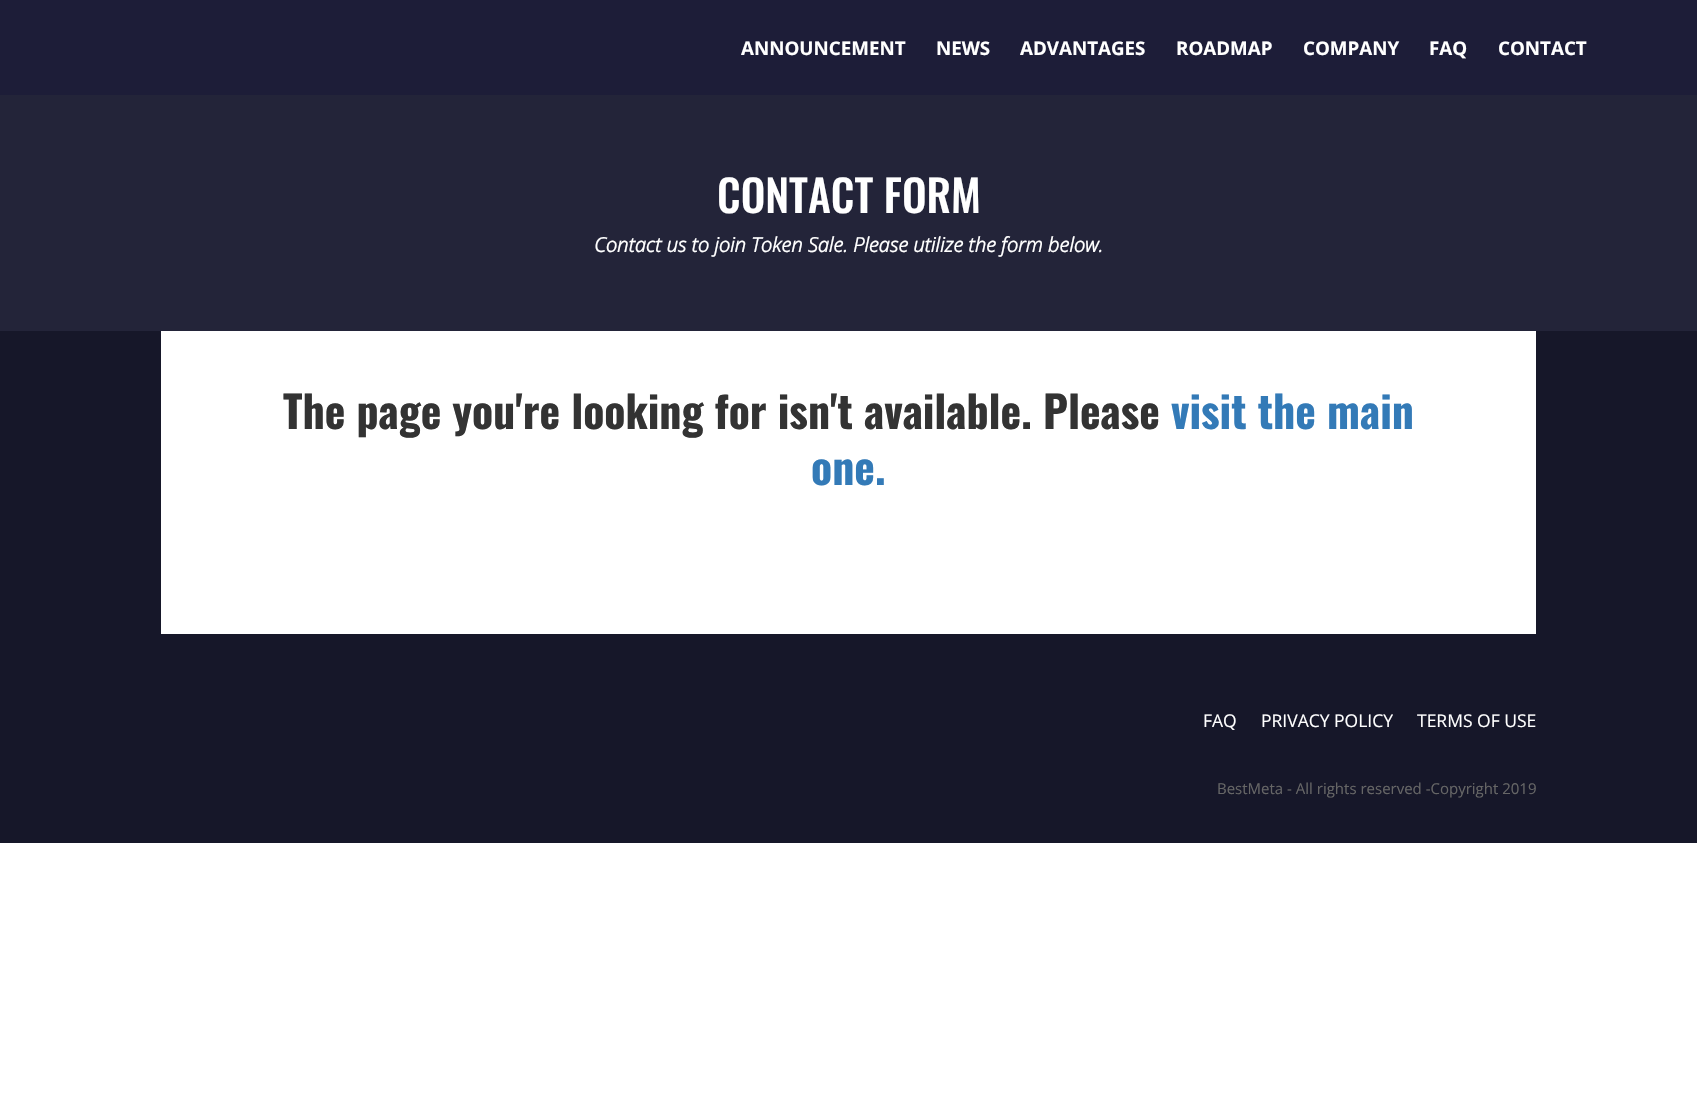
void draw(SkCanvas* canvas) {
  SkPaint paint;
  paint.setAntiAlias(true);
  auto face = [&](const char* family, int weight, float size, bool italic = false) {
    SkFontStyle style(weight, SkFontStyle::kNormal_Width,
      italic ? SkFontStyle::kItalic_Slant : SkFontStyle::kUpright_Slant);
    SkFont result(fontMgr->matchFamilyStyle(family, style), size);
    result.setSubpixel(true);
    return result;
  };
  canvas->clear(0xffffffff);
  {
    const struct { float x, y, w, h; SkColor color; } items[] = {
      {0, 0, 1697, 95, 0xff1d1d38},
      {0, 95, 1697, 236, 0xff232439},
      {0, 331, 1697, 512, 0xff161729},
      {161, 331, 1375, 303, 0xffffffff},
    };
    for (auto [x, y, w, h, color] : items) {
      paint.setColor(color);
      canvas->drawRect(SkRect::MakeXYWH(x, y, w, h), paint);
    }
  }
  auto f0 = face("Open Sans", 700, 18.75f);
  {
    const struct { const char* s; float x, y; } items[] = {
      {"ANNOUNCEMENT", 741, 55},
      {"NEWS", 936, 55},
      {"ADVANTAGES", 1020, 55},
      {"ROADMAP", 1176, 55},
      {"COMPANY", 1303, 55},
      {"FAQ", 1429, 55},
      {"CONTACT", 1498, 55},
    };
    for (auto [s, x, y] : items) {
      canvas->drawString(s, x, y, f0, paint);
    }
  }
  auto f1 = face("Oswald", 500, 43.75f);
  canvas->drawString("CONTACT FORM", 717, 213, f1, paint);
  auto f2 = face("Open Sans", 700, 20, true);
  canvas->drawString("Contact us to join Token Sale. Please utilize the form below.", 594, 252, f2, paint);
  auto f3 = face("Oswald", 700, 43.75f);
  paint.setColor(0xff333333);
  canvas->drawString("The page you're looking for isn't available. Please", 283, 429, f3, paint);
  paint.setColor(0xff337ab7);
  canvas->drawString("visit the main", 1171, 429, f3, paint);
  canvas->drawString("one.", 811, 485, f3, paint);
  auto f4 = face("Open Sans", 400, 17.5f);
  paint.setColor(0xffffffff);
  {
    const struct { const char* s; float x, y; } items[] = {
      {"FAQ", 1203, 727},
      {"PRIVACY POLICY", 1261, 727},
      {"TERMS OF USE", 1417, 727},
    };
    for (auto [s, x, y] : items) {
      canvas->drawString(s, x, y, f4, paint);
    }
  }
  auto f5 = face("Open Sans", 400, 15);
  paint.setColor(0xff666666);
  canvas->drawString("BestMeta - All rights reserved -Copyright 2019", 1217, 794, f5, paint);
}
